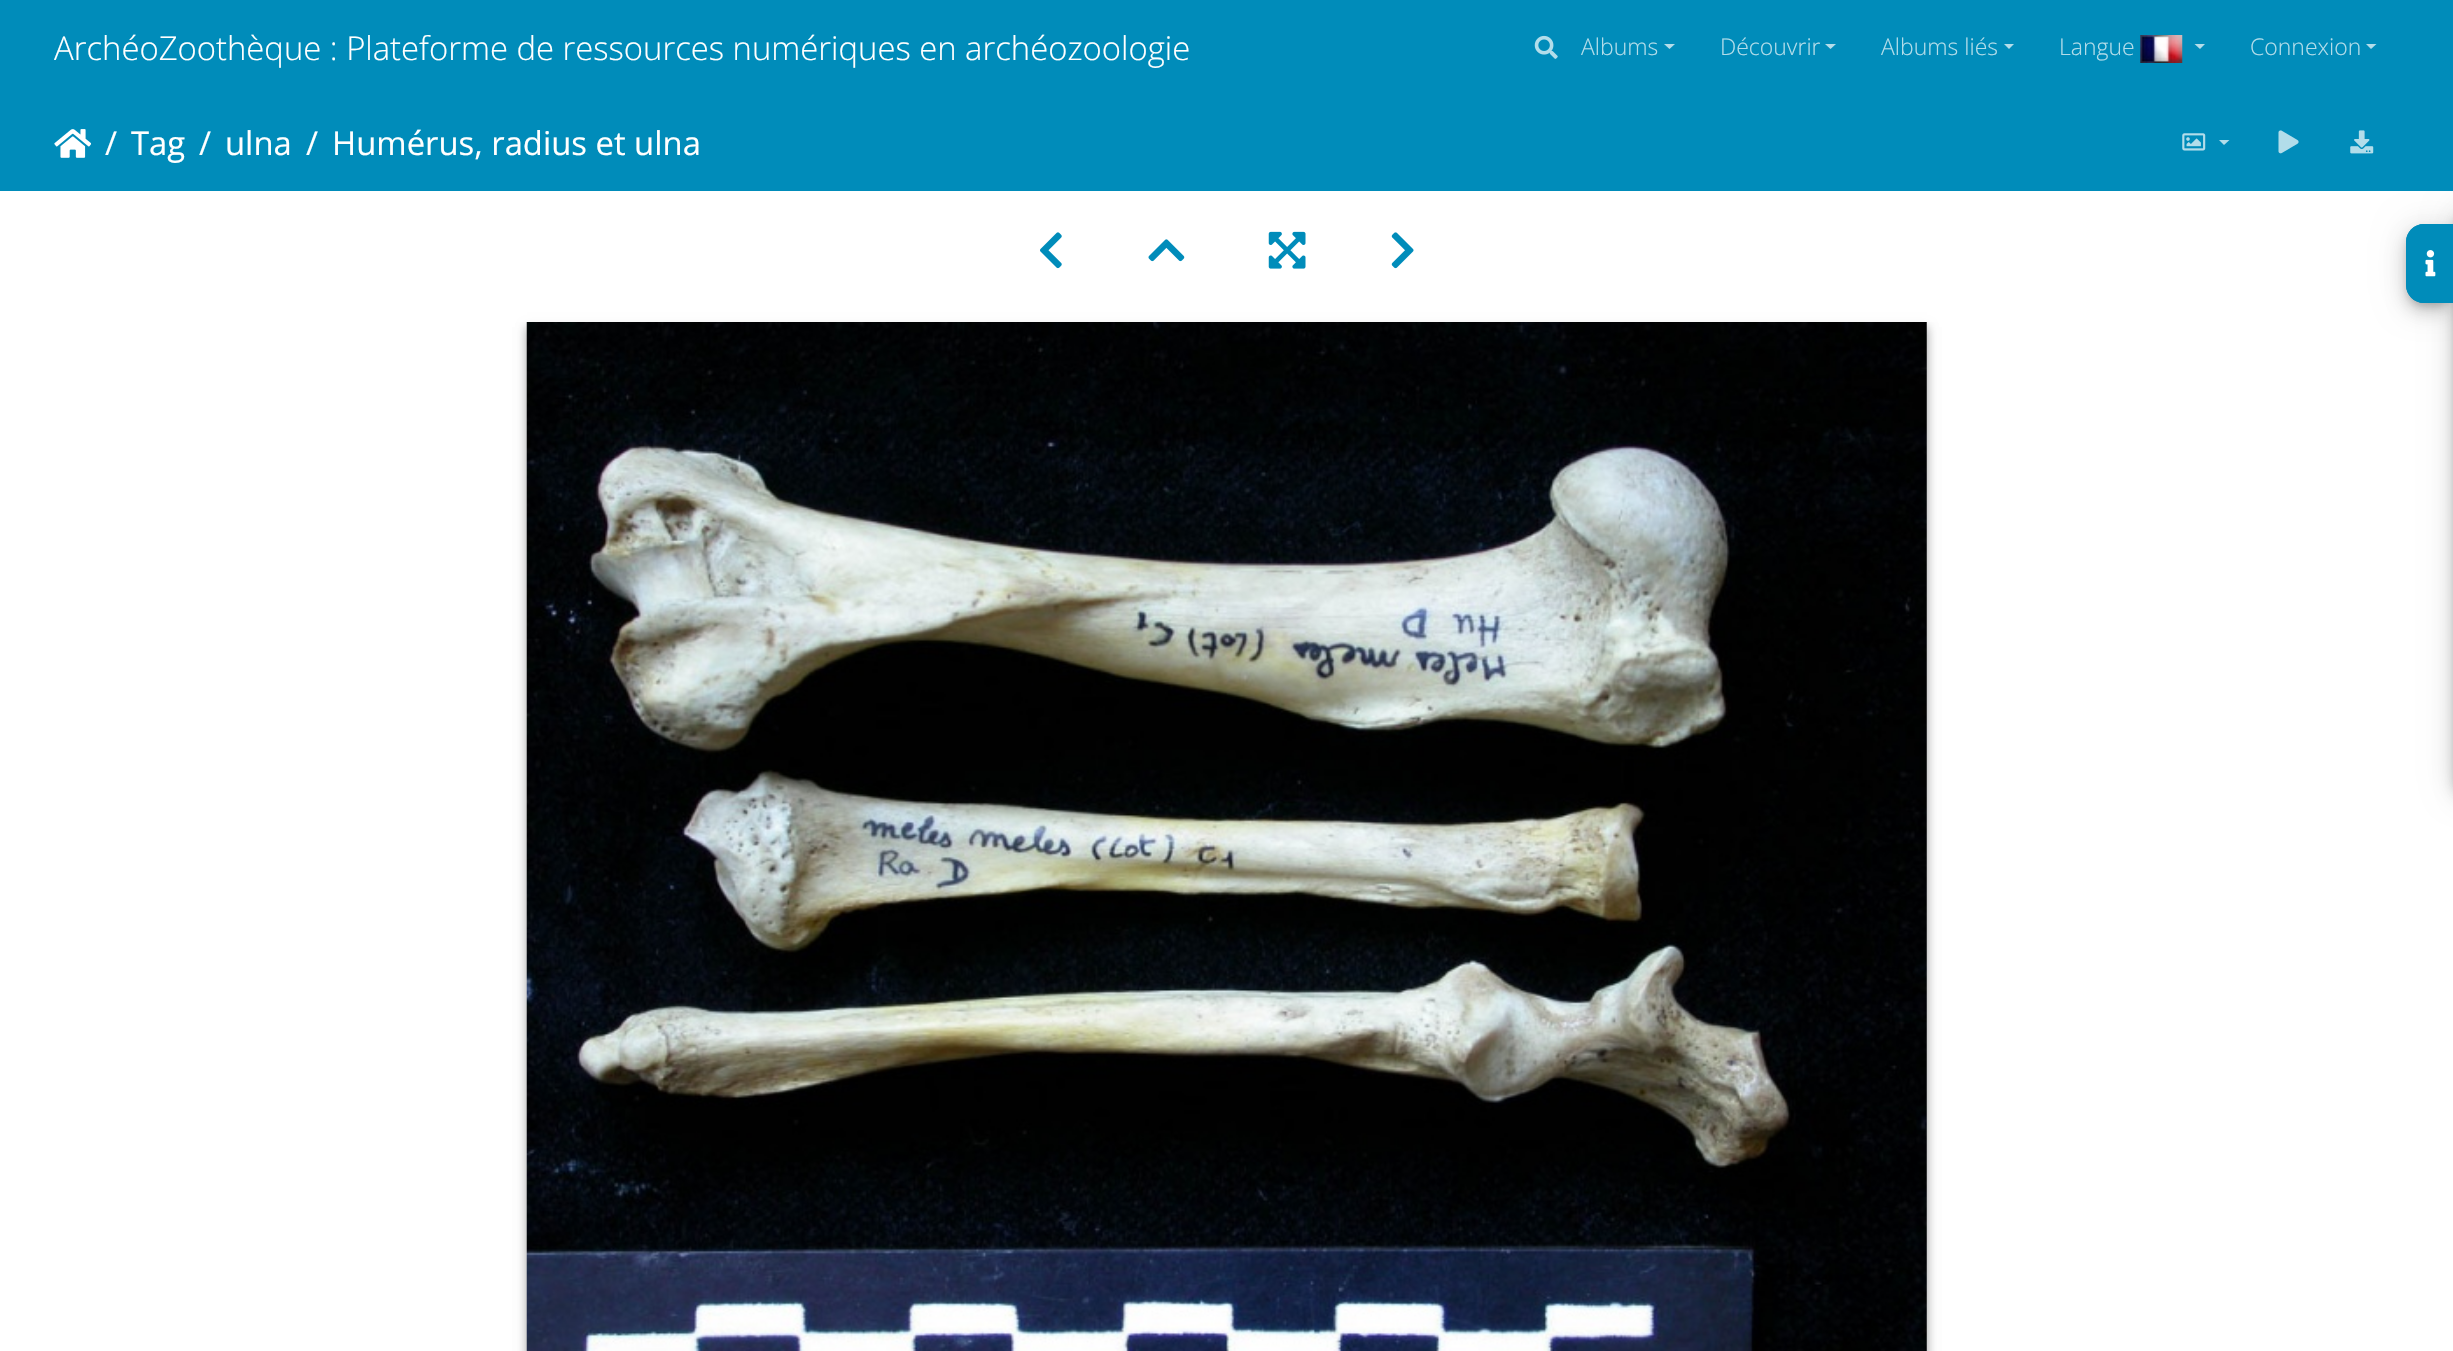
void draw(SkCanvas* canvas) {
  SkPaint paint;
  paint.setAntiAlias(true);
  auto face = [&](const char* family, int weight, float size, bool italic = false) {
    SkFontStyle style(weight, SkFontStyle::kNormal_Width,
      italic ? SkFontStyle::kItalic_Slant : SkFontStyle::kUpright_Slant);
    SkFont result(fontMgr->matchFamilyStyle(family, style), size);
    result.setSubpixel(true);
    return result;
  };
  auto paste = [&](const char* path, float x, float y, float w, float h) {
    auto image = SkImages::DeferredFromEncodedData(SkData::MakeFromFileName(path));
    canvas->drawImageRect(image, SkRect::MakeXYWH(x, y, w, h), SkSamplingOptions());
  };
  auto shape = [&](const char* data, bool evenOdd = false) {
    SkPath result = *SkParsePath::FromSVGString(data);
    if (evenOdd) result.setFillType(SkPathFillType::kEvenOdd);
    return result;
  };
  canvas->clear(0xffffffff);
  paint.setColor(0x1f000000);
  paint.setMaskFilter(SkMaskFilter::MakeBlur(kNormal_SkBlurStyle, 16));
  canvas->drawRoundRect(SkRect::MakeXYWH(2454, 208, 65, 585), 18, 18, paint);
  paint.setMaskFilter(nullptr);
  paint.setColor(0x24000000);
  paint.setMaskFilter(SkMaskFilter::MakeBlur(kNormal_SkBlurStyle, 9));
  canvas->drawRoundRect(SkRect::MakeXYWH(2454, 217, 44, 585), 18, 18, paint);
  paint.setMaskFilter(nullptr);
  paint.setColor(0x1f000000);
  paint.setMaskFilter(SkMaskFilter::MakeBlur(kNormal_SkBlurStyle, 16));
  canvas->drawRoundRect(SkRect::MakeXYWH(2406, 226, 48, 79), 18, 18, paint);
  paint.setMaskFilter(nullptr);
  paint.setColor(0xff008cba);
  canvas->drawRect(SkRect::MakeXYWH(0, 0, 2453, 191), paint);
  paste("img/1.png", 1534, 35, 24, 24);
  paint.setColor(0xffb3ddea);
  canvas->drawPath(shape("M1664 44H1675L1669.5 49Z"), paint);
  canvas->drawPath(shape("M1825 44H1836L1830.5 49Z"), paint);
  canvas->drawPath(shape("M2004 44H2014L2009 49Z"), paint);
  paste("img/2.png", 2140, 35, 43, 28);
  canvas->drawPath(shape("M2194.5 44H2205L2200 49Z"), paint);
  canvas->drawPath(shape("M2366 44H2376.5L2371 49Z"), paint);
  paste("img/3.png", 54, 129, 37, 29);
  paste("img/4.png", 2182, 133, 24, 18);
  canvas->drawPath(shape("M2219 140H2229.5L2224 145Z"), paint);
  paste("img/5.png", 2278, 130, 21, 24);
  paste("img/6.png", 2350, 130, 24, 24);
  paste("img/7.png", 1040, 232, 22, 37);
  paste("img/8.png", 1148, 239, 37, 23);
  paste("img/9.png", 1268, 231, 38, 38);
  paste("img/10.png", 1391, 232, 23, 37);
  paint.setColor(0x33000000);
  paint.setMaskFilter(SkMaskFilter::MakeBlur(kNormal_SkBlurStyle, 4.5f));
  canvas->drawRoundRect(SkRect::MakeXYWH(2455, 214, 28, 581), 16, 16, paint);
  paint.setMaskFilter(nullptr);
  paint.setMaskFilter(SkMaskFilter::MakeBlur(kNormal_SkBlurStyle, 4.5f));
  canvas->drawRoundRect(SkRect::MakeXYWH(2408, 231, 44, 75), 16, 16, paint);
  paint.setMaskFilter(nullptr);
  paint.setColor(0x24000000);
  paint.setMaskFilter(SkMaskFilter::MakeBlur(kNormal_SkBlurStyle, 9));
  canvas->drawRoundRect(SkRect::MakeXYWH(2406, 235, 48, 78), 18, 18, paint);
  paint.setMaskFilter(nullptr);
  paint.setColor(0xff008cba);
  canvas->drawPath(shape("M2424 224H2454V303H2424C2414 303 2406 295 2406 285V242C2406 232 2414 224 2424 224Z"), paint);
  canvas->drawPath(shape("M2424 224H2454V303H2424C2414 303 2406 295 2406 285V242C2406 232 2414 224 2424 224ZM2424 226H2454V301H2424C2415 301 2408 294 2408 285V242C2408 233 2415 226 2424 226Z", true), paint);
  paste("img/11.png", 2425, 250, 11, 27);
  canvas->save();
  canvas->clipRect(SkRect::MakeXYWH(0, 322, 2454, 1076));
  paint.setColor(0x3b000000);
  paint.setMaskFilter(SkMaskFilter::MakeBlur(kNormal_SkBlurStyle, 5));
  canvas->drawRect(SkRect::MakeXYWH(527, 327, 1400, 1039), paint);
  paint.setMaskFilter(nullptr);
  canvas->restore();
  paint.setColor(0x29000000);
  paint.setMaskFilter(SkMaskFilter::MakeBlur(kNormal_SkBlurStyle, 5));
  canvas->drawRect(SkRect::MakeXYWH(527, 327, 1400, 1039), paint);
  paint.setMaskFilter(nullptr);
  paste("img/12.png", 526, 322, 1401, 1029);
  auto f0 = face("Open Sans", 300, 32.8f);
  paint.setColor(0xffffffff);
  canvas->drawString("ArchéoZoothèque : Plateforme de ressources numériques en archéozoologie", 54, 60, f0, paint);
  auto f1 = face("Open Sans", 300, 23);
  paint.setColor(0xffb3ddea);
  {
    const struct { const char* s; float x, y; } items[] = {
      {"Albums", 1581, 55},
      {"Découvrir", 1720, 55},
      {"Albums liés", 1881, 55},
      {"Langue", 2059, 55},
      {"Connexion", 2250, 55},
    };
    for (auto [s, x, y] : items) {
      canvas->drawString(s, x, y, f1, paint);
    }
  }
  auto f2 = face("Open Sans", 400, 32.8f);
  paint.setColor(0xffffffff);
  {
    const struct { const char* s; float x, y; } items[] = {
      {"/", 105, 155},
      {"Tag", 131, 155},
      {"/", 199, 155},
      {"ulna", 225, 155},
      {"/", 306, 155},
      {"Humérus, radius et ulna", 332, 155},
    };
    for (auto [s, x, y] : items) {
      canvas->drawString(s, x, y, f2, paint);
    }
  }
}
